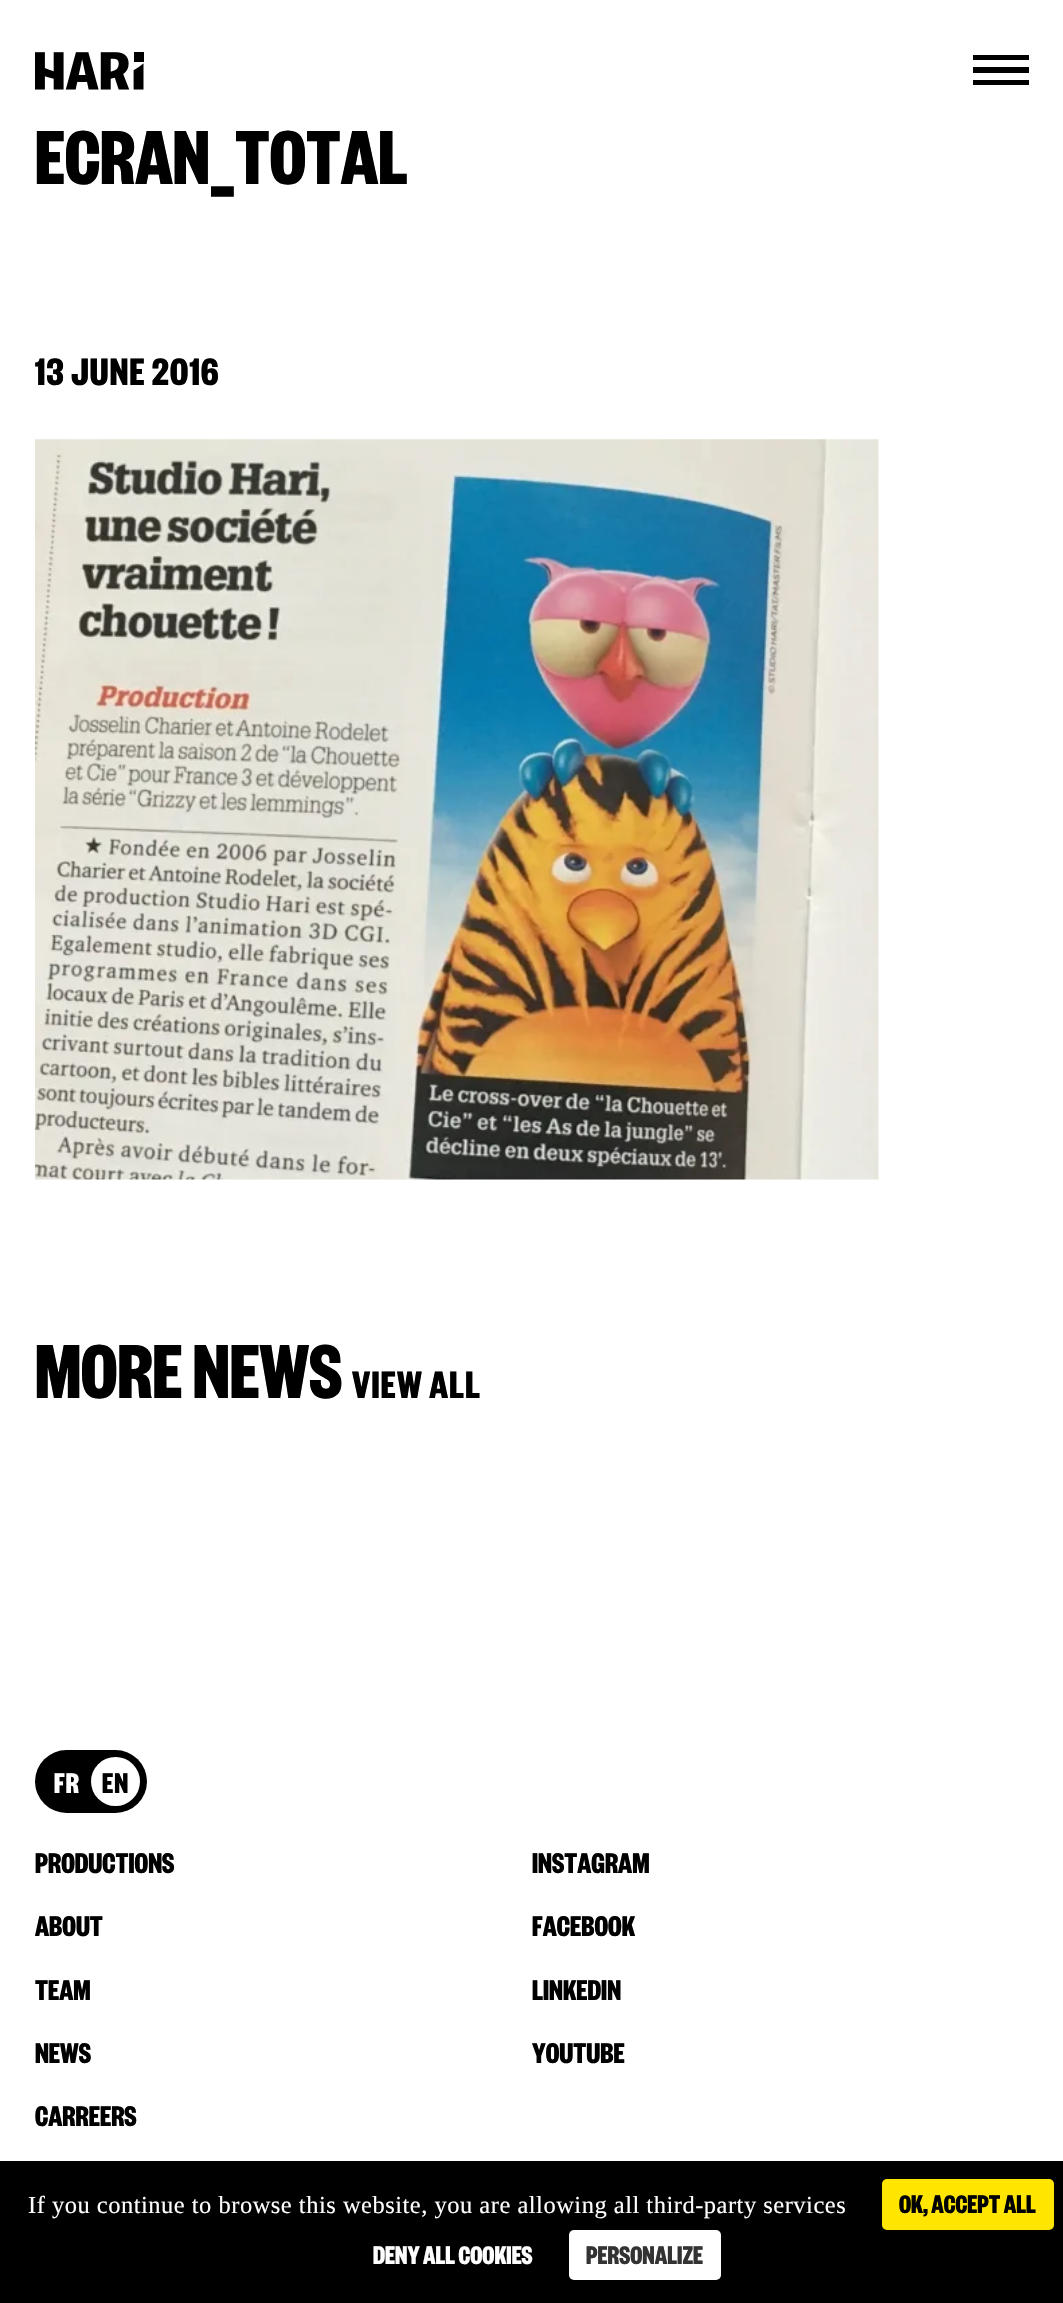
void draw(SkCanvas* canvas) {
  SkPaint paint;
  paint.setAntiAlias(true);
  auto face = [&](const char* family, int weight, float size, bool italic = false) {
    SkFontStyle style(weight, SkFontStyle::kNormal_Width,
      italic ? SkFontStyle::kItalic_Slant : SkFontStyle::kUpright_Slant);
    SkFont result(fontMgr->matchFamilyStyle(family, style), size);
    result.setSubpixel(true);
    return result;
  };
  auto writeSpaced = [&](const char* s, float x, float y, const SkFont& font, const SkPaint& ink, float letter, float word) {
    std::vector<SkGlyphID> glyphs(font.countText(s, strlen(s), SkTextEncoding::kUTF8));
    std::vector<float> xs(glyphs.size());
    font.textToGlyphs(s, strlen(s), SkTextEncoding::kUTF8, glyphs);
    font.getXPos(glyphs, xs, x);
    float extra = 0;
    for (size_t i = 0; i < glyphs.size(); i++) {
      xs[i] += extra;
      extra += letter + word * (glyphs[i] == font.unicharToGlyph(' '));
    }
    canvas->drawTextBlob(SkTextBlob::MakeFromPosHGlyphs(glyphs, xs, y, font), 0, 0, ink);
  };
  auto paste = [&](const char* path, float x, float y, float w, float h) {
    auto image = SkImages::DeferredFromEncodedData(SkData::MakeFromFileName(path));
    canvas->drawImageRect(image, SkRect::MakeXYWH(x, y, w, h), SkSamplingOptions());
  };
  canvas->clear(0xffffffff);
  paste("img/1.png", 35, 52, 109, 38);
  {
    const struct { float x, y, w, h; SkColor color; } items[] = {
      {973, 55, 56, 5, 0xff000000},
      {973, 67, 56, 6, 0xff000000},
      {973, 80, 56, 5, 0xff000000},
    };
    for (auto [x, y, w, h, color] : items) {
      paint.setColor(color);
      canvas->drawRect(SkRect::MakeXYWH(x, y, w, h), paint);
    }
  }
  paste("img/2.png", 35, 439, 844, 741);
  canvas->drawRoundRect(SkRect::MakeXYWH(35, 1750, 112, 63), 31.5f, 31.5f, paint);
  paint.setColor(0xffffffff);
  canvas->drawCircle(115.5f, 1781.5f, 24.5f, paint);
  paint.setColor(0xff000000);
  canvas->drawRect(SkRect::MakeXYWH(0, 2161, 1063, 142), paint);
  paint.setColor(0xffffe500);
  canvas->drawRoundRect(SkRect::MakeXYWH(882, 2179, 172, 51), 5, 5, paint);
  paint.setColor(0xffffffff);
  canvas->drawRoundRect(SkRect::MakeXYWH(569, 2230, 152, 50), 5, 5, paint);
  auto f0 = face("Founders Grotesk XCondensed", 700, 84);
  paint.setColor(0xff000000);
  canvas->drawString("ECRAN_TOTAL", 35, 184, f0, paint);
  auto f1 = face("Founders Grotesk XCondensed", 700, 42);
  writeSpaced("13 JUNE 2016", 35, 385, f1, paint, 1.25f, 0);
  canvas->drawString("MORE NEWS", 35, 1398, f0, paint);
  writeSpaced("VIEW ALL", 352, 1398, f1, paint, 1.25f, 0);
  auto f2 = face("Founders Grotesk XCondensed", 700, 31.5f);
  paint.setColor(0xffffffff);
  writeSpaced("FR", 54, 1793, f2, paint, 1, 0);
  paint.setColor(0xff000000);
  writeSpaced("EN", 102, 1793, f2, paint, 1, 0);
  {
    const struct { const char* s; float x, y; } items[] = {
      {"PRODUCTIONS", 35, 1873},
      {"ABOUT", 35, 1936},
      {"TEAM", 35, 2000},
      {"NEWS", 35, 2063},
      {"CARREERS", 35, 2126},
      {"INSTAGRAM", 532, 1873},
      {"FACEBOOK", 532, 1936},
      {"LINKEDIN", 532, 2000},
      {"YOUTUBE", 532, 2063},
    };
    for (auto [s, x, y] : items) {
      canvas->drawString(s, x, y, f2, paint);
    }
  }
  auto f3 = face("Liberation Serif", 400, 24.5f);
  paint.setColor(0xffffffff);
  writeSpaced("If you continue to browse this website, you are allowing all third-party services", 28, 2213, f3, paint, 0.5f, 0);
  auto f4 = face("Founders Grotesk XCondensed", 700, 28);
  paint.setColor(0xff000000);
  canvas->drawString("OK, ACCEPT ALL", 899, 2213, f4, paint);
  paint.setColor(0xffffffff);
  canvas->drawString("DENY ALL COOKIES", 373, 2264, f4, paint);
  paint.setColor(0xff333333);
  canvas->drawString("PERSONALIZE", 586, 2264, f4, paint);
}
